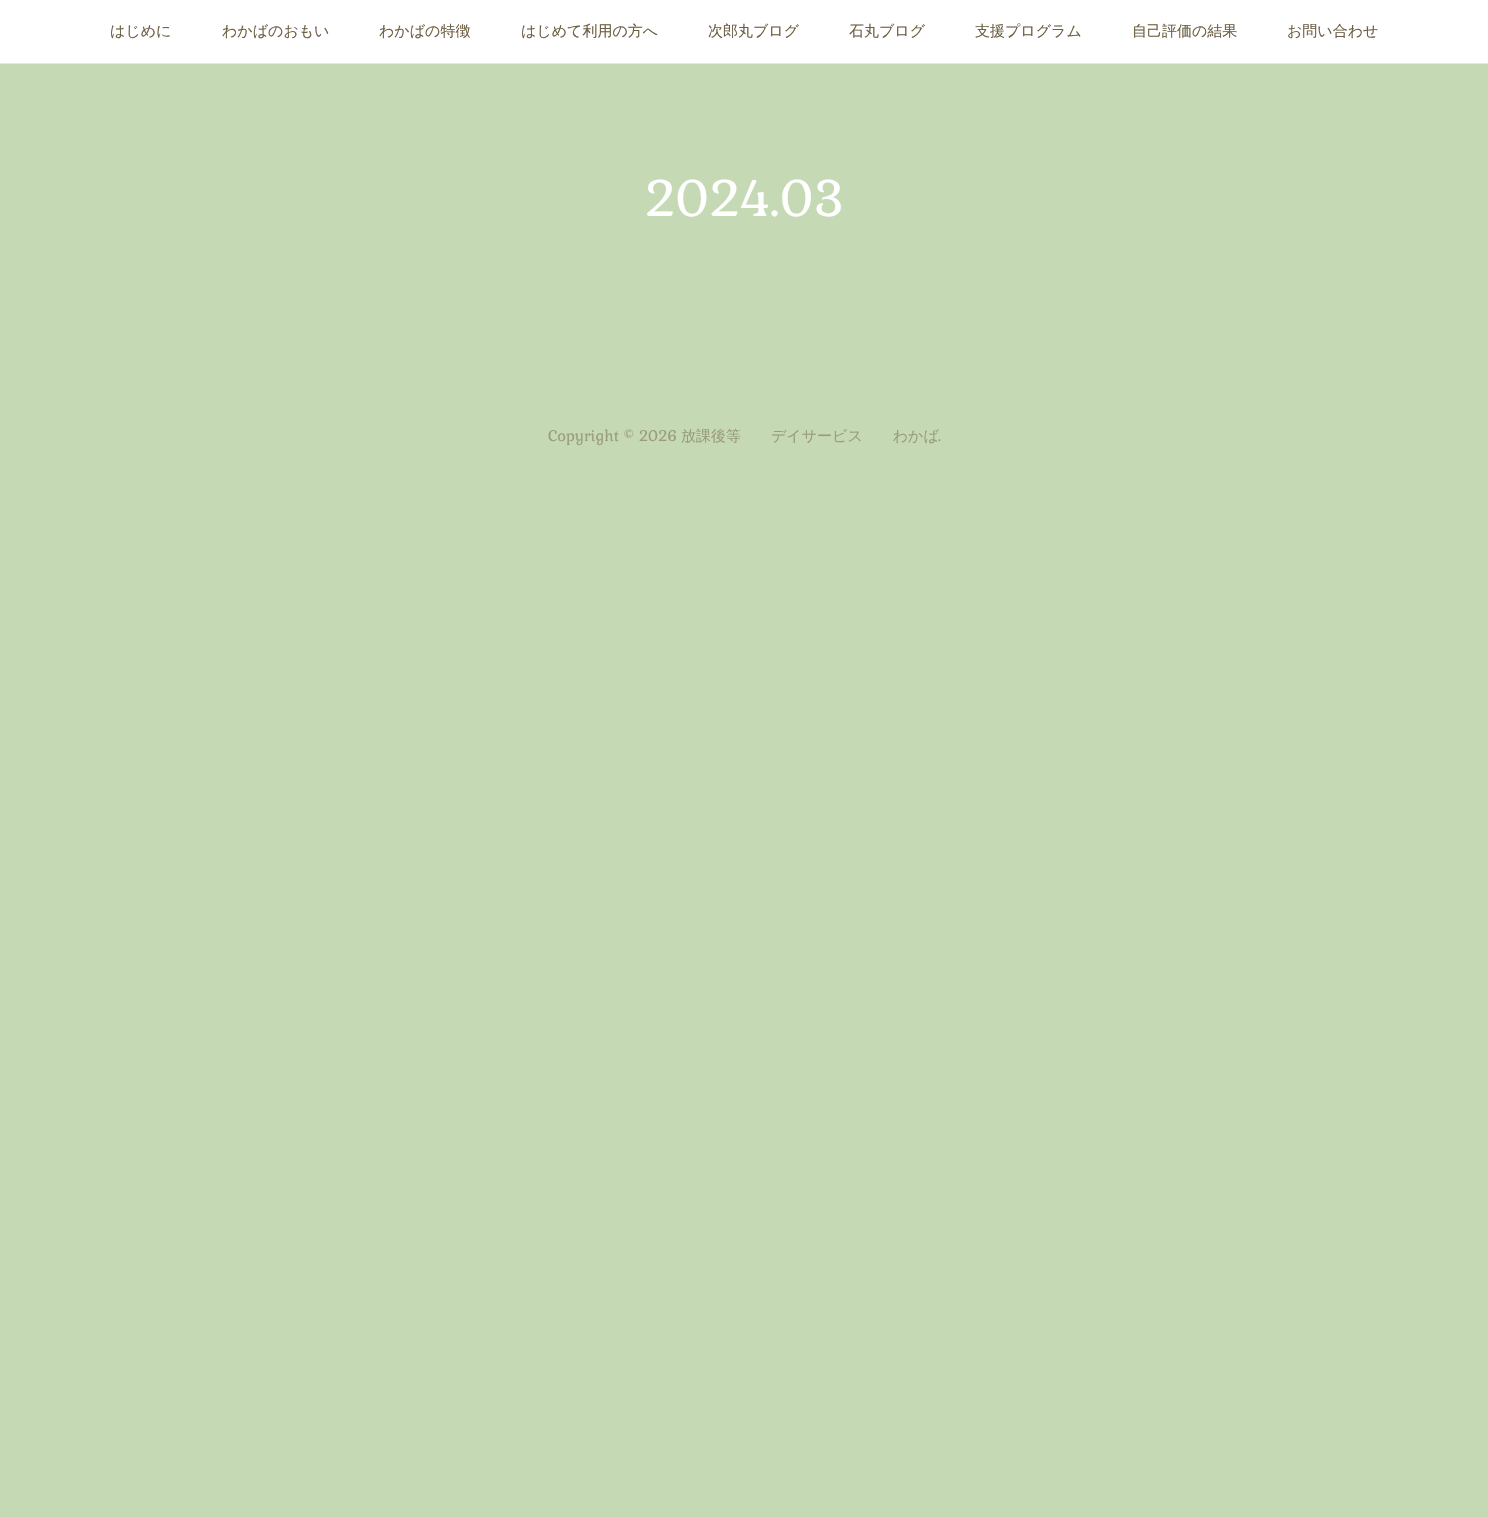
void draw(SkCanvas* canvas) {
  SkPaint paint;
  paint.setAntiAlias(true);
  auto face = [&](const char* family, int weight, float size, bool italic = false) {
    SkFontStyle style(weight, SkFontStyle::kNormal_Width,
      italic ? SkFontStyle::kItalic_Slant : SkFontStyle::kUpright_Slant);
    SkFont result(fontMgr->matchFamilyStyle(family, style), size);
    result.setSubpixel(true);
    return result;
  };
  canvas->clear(0xffc5d9b4);
  paint.setColor(0xffffffff);
  canvas->drawRect(SkRect::MakeXYWH(0, 0, 1488, 63), paint);
  paint.setColor(0xffe6e6e6);
  canvas->drawRect(SkRect::MakeXYWH(0, 63, 1488, 1), paint);
  auto f0 = face("WenQuanYi Zen Hei", 500, 15);
  paint.setColor(0xff6e5f44);
  {
    const struct { const char* s; float x, y; } items[] = {
      {"はじめに", 110, 36},
      {"わかばのおもい", 222, 36},
      {"わかばの特徴", 379, 36},
      {"はじめて利用の方へ", 521, 36},
      {"次郎丸ブログ", 708, 36},
      {"石丸ブログ", 849, 36},
      {"支援プログラム", 975, 36},
      {"自己評価の結果", 1132, 36},
      {"お問い合わせ", 1287, 36},
    };
    for (auto [s, x, y] : items) {
      canvas->drawString(s, x, y, f0, paint);
    }
  }
  auto f1 = face("Gabriela", 400, 50);
  paint.setColor(0xffffffff);
  canvas->drawString("2024.03", 645, 216, f1, paint);
  auto f2 = face("Gabriela", 400, 15);
  paint.setColor(0xff9a9c7c);
  canvas->drawString("Copyright © 2026", 548, 441, f2, paint);
  canvas->drawString("放課後等　　デイサービス　　わかば", 681, 441, f0, paint);
  canvas->drawString(".", 938, 441, f2, paint);
}
